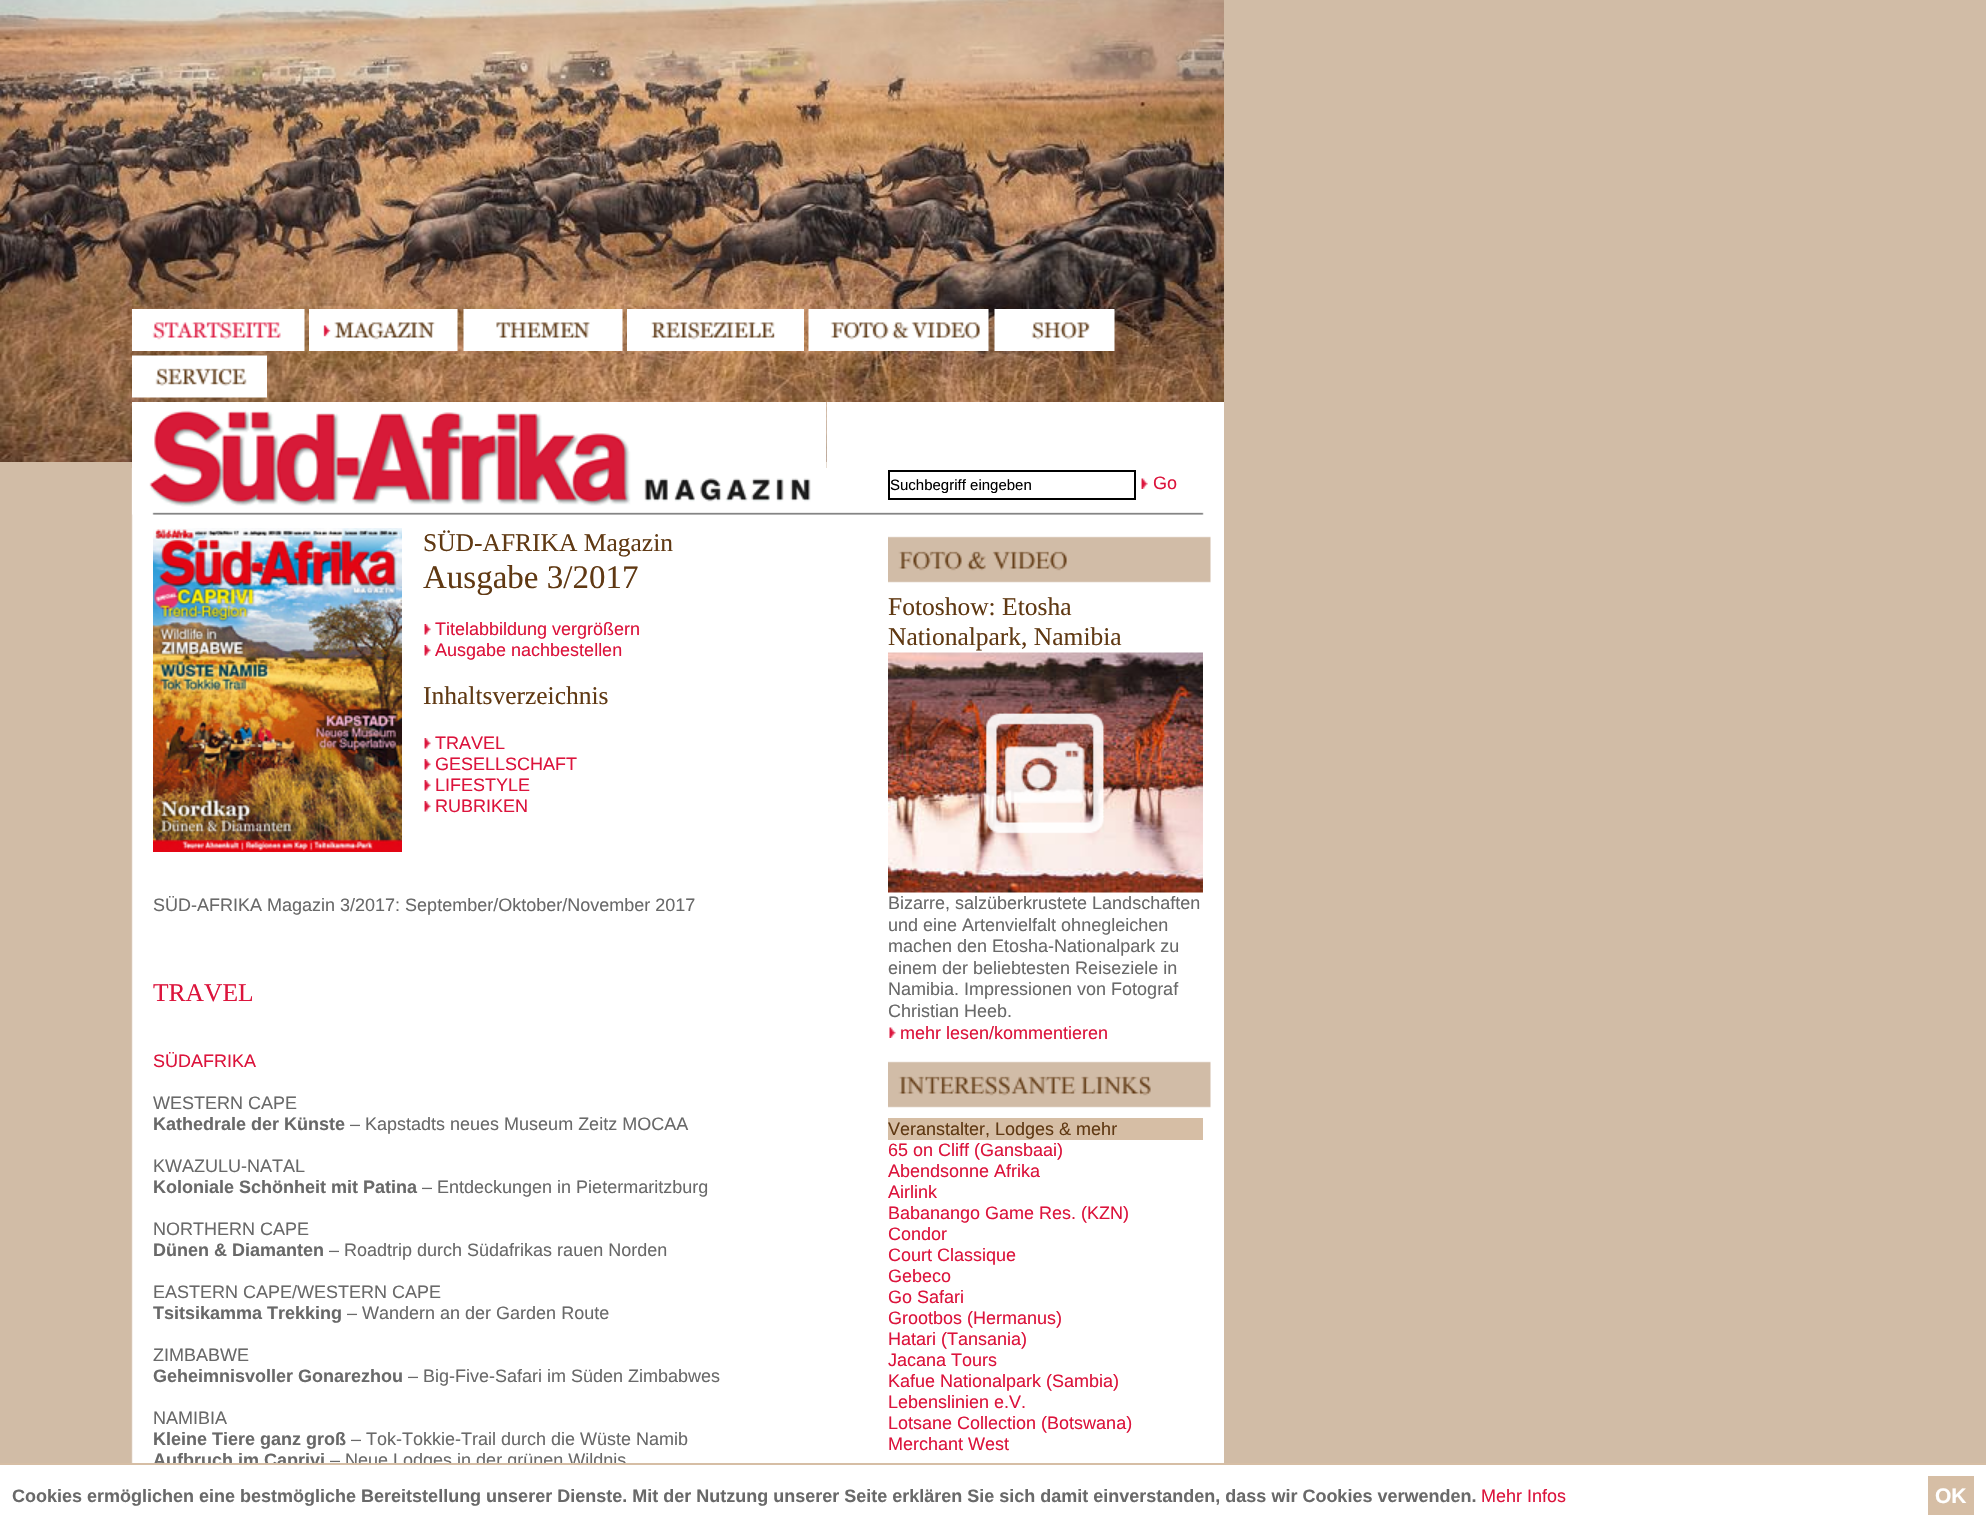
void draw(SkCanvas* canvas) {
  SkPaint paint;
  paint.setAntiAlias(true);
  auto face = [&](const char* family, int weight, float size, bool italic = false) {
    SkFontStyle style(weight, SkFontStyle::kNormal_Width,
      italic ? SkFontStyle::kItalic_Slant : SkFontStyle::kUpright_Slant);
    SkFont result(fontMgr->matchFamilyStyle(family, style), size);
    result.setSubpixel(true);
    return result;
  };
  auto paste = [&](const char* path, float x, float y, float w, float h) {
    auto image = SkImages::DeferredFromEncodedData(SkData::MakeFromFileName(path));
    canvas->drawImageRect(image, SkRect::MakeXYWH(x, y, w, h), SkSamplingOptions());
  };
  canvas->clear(0xffd1bca6);
  paste("img/1.png", 0, 0, 1224, 462);
  paste("img/2.png", 132, 309, 173, 42);
  paste("img/3.png", 309, 309, 149, 42);
  paste("img/4.png", 463, 309, 160, 42);
  paste("img/5.png", 627, 309, 177, 42);
  paste("img/6.png", 808, 309, 181, 42);
  paste("img/7.png", 994, 309, 121, 42);
  paste("img/8.png", 132, 355, 135, 43);
  paste("img/12.png", 131, 468, 1093, 995);
  paste("img/9.png", 132, 402, 695, 105);
  paint.setColor(0xffffffff);
  canvas->drawRect(SkRect::MakeXYWH(827, 402, 397, 66), paint);
  paint.setStroke(true);
  paint.setStrokeWidth(2);
  paint.setColor(0xff000000);
  canvas->drawRect(SkRect::MakeXYWH(889, 471, 246, 28), paint);
  paste("img/10.png", 1141, 478, 7, 11);
  paste("img/11.png", 132, 507, 1072, 8);
  paste("img/13.png", 153, 528, 249, 324);
  paste("img/14.png", 424, 624, 7, 11);
  paste("img/14.png", 424, 645, 7, 11);
  paste("img/14.png", 424, 738, 7, 11);
  paste("img/14.png", 424, 759, 7, 11);
  paste("img/14.png", 424, 780, 7, 11);
  paste("img/14.png", 424, 801, 7, 11);
  paste("img/15.png", 888, 536, 323, 47);
  paste("img/16.png", 888, 652, 315, 241);
  paste("img/17.png", 986, 713, 118, 121);
  paste("img/18.png", 889, 1027, 7, 11);
  paste("img/19.png", 888, 1061, 323, 47);
  paint.setStroke(false);
  paint.setColor(0xffd6bea5);
  canvas->drawRect(SkRect::MakeXYWH(888, 1118, 315, 22), paint);
  auto f0 = face("Liberation Sans", 400, 15);
  paint.setColor(0xff000000);
  canvas->drawString("Suchbegriff eingeben", 890, 490, f0, paint);
  auto f1 = face("Liberation Sans", 400, 18);
  paint.setColor(0xffdc143c);
  canvas->drawString("Go", 1153, 489, f1, paint);
  auto f2 = face("Liberation Serif", 400, 25.5f);
  paint.setColor(0xff603913);
  canvas->drawString("SÜD-AFRIKA Magazin", 423, 551, f2, paint);
  auto f3 = face("Liberation Serif", 400, 33);
  canvas->drawString("Ausgabe 3/2017", 423, 588, f3, paint);
  paint.setColor(0xffdc143c);
  canvas->drawString("Titelabbildung vergrößern", 435, 635, f1, paint);
  canvas->drawString("Ausgabe nachbestellen", 435, 656, f1, paint);
  paint.setColor(0xff603913);
  canvas->drawString("Inhaltsverzeichnis", 423, 704, f2, paint);
  paint.setColor(0xffdc143c);
  {
    const struct { const char* s; float x, y; } items[] = {
      {"TRAVEL", 435, 749},
      {"GESELLSCHAFT", 435, 770},
      {"LIFESTYLE", 435, 791},
      {"RUBRIKEN", 435, 812},
    };
    for (auto [s, x, y] : items) {
      canvas->drawString(s, x, y, f1, paint);
    }
  }
  paint.setColor(0xff696969);
  canvas->drawString("SÜD-AFRIKA Magazin 3/2017: September/Oktober/November 2017", 153, 911, f1, paint);
  paint.setColor(0xffdc143c);
  canvas->drawString("TRAVEL", 153, 1001, f2, paint);
  canvas->drawString("SÜDAFRIKA", 153, 1067, f1, paint);
  paint.setColor(0xff696969);
  canvas->drawString("WESTERN CAPE", 153, 1109, f1, paint);
  auto f4 = face("Liberation Sans", 700, 18);
  canvas->drawString("Kathedrale der Künste", 153, 1130, f4, paint);
  canvas->drawString("– Kapstadts neues Museum Zeitz MOCAA", 350, 1130, f1, paint);
  canvas->drawString("KWAZULU-NATAL", 153, 1172, f1, paint);
  canvas->drawString("Koloniale Schönheit mit Patina", 153, 1193, f4, paint);
  canvas->drawString("– Entdeckungen in Pietermaritzburg", 422, 1193, f1, paint);
  canvas->drawString("NORTHERN CAPE", 153, 1235, f1, paint);
  canvas->drawString("Dünen & Diamanten", 153, 1256, f4, paint);
  canvas->drawString("– Roadtrip durch Südafrikas rauen Norden", 329, 1256, f1, paint);
  canvas->drawString("EASTERN CAPE/WESTERN CAPE", 153, 1298, f1, paint);
  canvas->drawString("Tsitsikamma Trekking", 153, 1319, f4, paint);
  canvas->drawString("– Wandern an der Garden Route", 347, 1319, f1, paint);
  canvas->drawString("ZIMBABWE", 153, 1361, f1, paint);
  canvas->drawString("Geheimnisvoller Gonarezhou", 153, 1382, f4, paint);
  canvas->drawString("– Big-Five-Safari im Süden Zimbabwes", 408, 1382, f1, paint);
  canvas->drawString("NAMIBIA", 153, 1424, f1, paint);
  canvas->drawString("Kleine Tiere ganz groß", 153, 1445, f4, paint);
  canvas->drawString("– Tok-Tokkie-Trail durch die Wüste Namib", 351, 1445, f1, paint);
  canvas->drawString("Aufbruch im Caprivi", 153, 1466, f4, paint);
  canvas->drawString("– Neue Lodges in der grünen Wildnis", 330, 1466, f1, paint);
  paint.setColor(0xff603913);
  canvas->drawString("Fotoshow: Etosha", 888, 615, f2, paint);
  canvas->drawString("Nationalpark, Namibia", 888, 645, f2, paint);
  paint.setColor(0xff696969);
  {
    const struct { const char* s; float x, y; } items[] = {
      {"Bizarre, salzüberkrustete Landschaften", 888, 909},
      {"und eine Artenvielfalt ohnegleichen", 888, 931},
      {"machen den Etosha-Nationalpark zu", 888, 952},
      {"einem der beliebtesten Reiseziele in", 888, 974},
      {"Namibia. Impressionen von Fotograf", 888, 995},
      {"Christian Heeb.", 888, 1017},
    };
    for (auto [s, x, y] : items) {
      canvas->drawString(s, x, y, f1, paint);
    }
  }
  paint.setColor(0xffdc143c);
  canvas->drawString("mehr lesen/kommentieren", 900, 1039, f1, paint);
  paint.setColor(0xff603913);
  canvas->drawString("Veranstalter, Lodges & mehr", 888, 1135, f1, paint);
  paint.setColor(0xffdc143c);
  {
    const struct { const char* s; float x, y; } items[] = {
      {"65 on Cliff (Gansbaai)", 888, 1156},
      {"Abendsonne Afrika", 888, 1177},
      {"Airlink", 888, 1198},
      {"Babanango Game Res. (KZN)", 888, 1219},
      {"Condor", 888, 1240},
      {"Court Classique", 888, 1261},
      {"Gebeco", 888, 1282},
      {"Go Safari", 888, 1303},
      {"Grootbos (Hermanus)", 888, 1324},
      {"Hatari (Tansania)", 888, 1345},
      {"Jacana Tours", 888, 1366},
      {"Kafue Nationalpark (Sambia)", 888, 1387},
      {"Lebenslinien e.V.", 888, 1408},
      {"Lotsane Collection (Botswana)", 888, 1429},
      {"Merchant West", 888, 1450},
    };
    for (auto [s, x, y] : items) {
      canvas->drawString(s, x, y, f1, paint);
    }
  }
  paint.setColor(0xffffffff);
  canvas->drawRect(SkRect::MakeXYWH(0, 1465, 1986, 62), paint);
  paint.setColor(0xffd6bea5);
  canvas->drawRect(SkRect::MakeXYWH(0, 1463, 1986, 2), paint);
  paint.setColor(0xff696969);
  canvas->drawString("Cookies ermöglichen eine bestmögliche Bereitstellung unserer Dienste. Mit der Nutzung unserer Seite erklären Sie sich damit einverstanden, dass wir Cookies verwenden.", 12, 1502, f4, paint);
  paint.setColor(0xffdc143c);
  canvas->drawString("Mehr Infos", 1481, 1502, f1, paint);
  paint.setColor(0xffd6bea5);
  canvas->drawRect(SkRect::MakeXYWH(1928, 1476, 46, 39), paint);
  auto f5 = face("Liberation Sans", 700, 21);
  paint.setColor(0xffffffff);
  canvas->drawString("OK", 1935, 1503, f5, paint);
}
